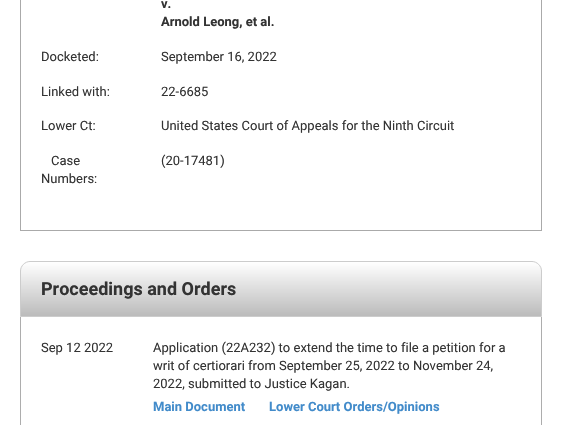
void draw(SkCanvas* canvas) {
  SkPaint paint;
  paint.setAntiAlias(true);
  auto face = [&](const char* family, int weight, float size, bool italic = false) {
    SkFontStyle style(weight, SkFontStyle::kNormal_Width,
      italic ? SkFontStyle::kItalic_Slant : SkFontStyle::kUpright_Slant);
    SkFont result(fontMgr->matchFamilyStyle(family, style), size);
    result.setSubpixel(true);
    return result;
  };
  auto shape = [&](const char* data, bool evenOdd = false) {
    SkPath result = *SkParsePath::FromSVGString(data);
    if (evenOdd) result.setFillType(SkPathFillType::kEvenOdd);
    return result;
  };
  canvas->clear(0xffffffff);
  paint.setStroke(true);
  paint.setStrokeWidth(1);
  paint.setColor(0xffaaaaaa);
  canvas->drawRect(SkRect::MakeXYWH(20.5f, -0.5f, 521, 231), paint);
  canvas->save();
  canvas->clipPath(shape("M30 261H532C537.5 261 542 265.5 542 271V317H20V271C20 265.5 24.5 261 30 261Z"), true);
  paint.setStroke(false);
  {
    const SkColor colors[] = {0xffffffff, 0xffbbbbbb};
    const float stops[] = {0, 1};
    const SkPoint ends[] = {{281, 262}, {281, 316}};
    paint.setShader(SkGradientShader::MakeLinear(ends, colors, stops, 2, SkTileMode::kClamp));
    paint.setAlpha(255);
  }
  canvas->drawRect(SkRect::MakeXYWH(20, 262, 522, 54), paint);
  canvas->restore();
  paint.setStroke(true);
  paint.setShader(nullptr);
  paint.setColor(0xffcccccc);
  canvas->drawPath(shape("M30 261.5H532C537 261.5 541.5 266 541.5 271V316.5H20.5V271C20.5 266 25 261.5 30 261.5Z"), paint);
  paint.setStroke(false);
  paint.setColor(0xffadadad);
  canvas->drawRect(SkRect::MakeXYWH(541, 317, 1, 108), paint);
  canvas->drawRect(SkRect::MakeXYWH(20, 317, 1, 108), paint);
  auto f0 = face("Roboto", 700, 13);
  paint.setColor(0xff333333);
  canvas->drawString("v.", 161, 8, f0, paint);
  canvas->drawString("Arnold Leong, et al.", 161, 26, f0, paint);
  auto f1 = face("Roboto", 400, 13);
  {
    const struct { const char* s; float x, y; } items[] = {
      {"Docketed:", 41, 61},
      {"September 16, 2022", 161, 61},
      {"Linked with:", 41, 96},
      {"22-6685", 161, 96},
      {"Lower Ct:", 41, 130},
      {"United States Court of Appeals for the Ninth Circuit", 161, 130},
      {"Case", 51, 165},
      {"Numbers:", 41, 183},
      {"(20-17481)", 161, 165},
    };
    for (auto [s, x, y] : items) {
      canvas->drawString(s, x, y, f1, paint);
    }
  }
  auto f2 = face("Roboto", 700, 18);
  canvas->drawString("Proceedings and Orders", 41, 295, f2, paint);
  {
    const struct { const char* s; float x, y; } items[] = {
      {"Sep 12 2022", 41, 352},
      {"Application (22A232) to extend the time to file a petition for a", 153, 352},
      {"writ of certiorari from September 25, 2022 to November 24,", 153, 370},
      {"2022, submitted to Justice Kagan.", 153, 388},
    };
    for (auto [s, x, y] : items) {
      canvas->drawString(s, x, y, f1, paint);
    }
  }
  paint.setColor(0xff428bca);
  canvas->drawString("Main Document", 153, 411, f0, paint);
  canvas->drawString("Lower Court Orders/Opinions", 269, 411, f0, paint);
}
